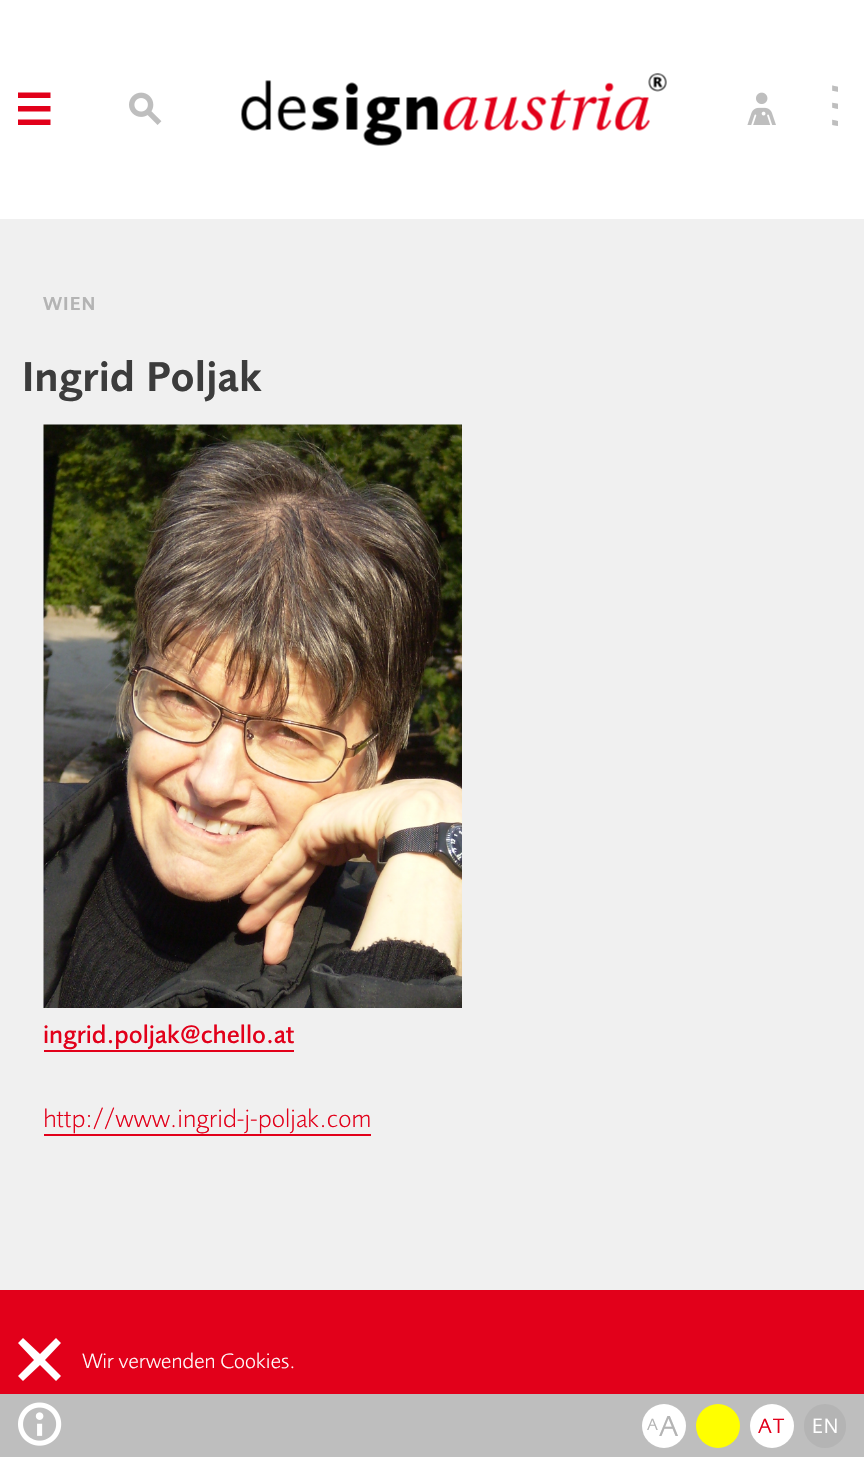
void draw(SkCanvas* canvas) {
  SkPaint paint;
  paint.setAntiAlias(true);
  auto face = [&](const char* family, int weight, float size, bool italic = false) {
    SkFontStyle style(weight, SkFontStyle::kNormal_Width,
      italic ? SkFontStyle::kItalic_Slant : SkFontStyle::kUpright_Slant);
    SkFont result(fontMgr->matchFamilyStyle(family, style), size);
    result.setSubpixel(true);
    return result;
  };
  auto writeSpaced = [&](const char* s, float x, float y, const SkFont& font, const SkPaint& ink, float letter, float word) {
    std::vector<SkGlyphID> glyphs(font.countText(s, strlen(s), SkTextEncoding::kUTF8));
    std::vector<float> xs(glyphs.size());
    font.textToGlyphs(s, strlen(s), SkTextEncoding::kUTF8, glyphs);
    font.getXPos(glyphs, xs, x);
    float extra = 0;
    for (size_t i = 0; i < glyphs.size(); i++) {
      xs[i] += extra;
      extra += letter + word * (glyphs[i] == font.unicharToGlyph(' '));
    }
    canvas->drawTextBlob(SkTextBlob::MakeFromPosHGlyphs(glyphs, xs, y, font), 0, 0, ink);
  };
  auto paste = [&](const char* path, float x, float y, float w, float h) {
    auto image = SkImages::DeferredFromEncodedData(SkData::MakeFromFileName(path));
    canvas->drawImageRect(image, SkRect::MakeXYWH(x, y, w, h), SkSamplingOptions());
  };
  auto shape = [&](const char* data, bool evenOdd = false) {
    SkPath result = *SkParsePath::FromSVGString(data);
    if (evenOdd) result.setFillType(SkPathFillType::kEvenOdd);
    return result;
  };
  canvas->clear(0xfff0f0f0);
  paint.setColor(0xffffffff);
  canvas->drawRect(SkRect::MakeXYWH(0, 0, 864, 219), paint);
  paint.setColor(0xffe2001a);
  canvas->drawPath(shape("M18 92.5H50.5V98H18ZM18 106H50.5V111.5H18ZM18 119.5H50.5V125H18Z"), paint);
  paste("img/1.png", 747, 92, 29, 33);
  paste("img/2.png", 129, 92, 33, 33);
  paste("img/3.png", 241, 73, 426, 73);
  paste("img/4.png", 43, 424, 419, 584);
  {
    const struct { float x, y, w, h; SkColor color; } items[] = {
      {44, 1050, 250, 2, 0xffe2001a},
      {44, 1134, 327, 2, 0xffe2001a},
      {0, 1290, 864, 104, 0xffe2001a},
      {0, 1394, 864, 63, 0xffbebebe},
    };
    for (auto [x, y, w, h, color] : items) {
      paint.setColor(color);
      canvas->drawRect(SkRect::MakeXYWH(x, y, w, h), paint);
    }
  }
  paste("img/5.png", 18, 1402, 44, 44);
  paint.setColor(0xffffffff);
  canvas->drawCircle(664, 1426, 22, paint);
  paint.setColor(0xffffff00);
  canvas->drawCircle(718, 1426, 22, paint);
  paint.setColor(0xffffffff);
  canvas->drawCircle(772, 1426, 22, paint);
  paint.setColor(0xffb4b4b4);
  canvas->drawRoundRect(SkRect::MakeXYWH(804, 1404, 42, 44), 21, 21, paint);
  paint.setColor(0xffffffff);
  canvas->drawPath(shape("M61 1343L56 1338L40 1354L23 1338L18 1343L34 1360L18 1376L23 1381L40 1365L56 1381L61 1376L45 1360Z"), paint);
  auto f0 = face("Liberation Sans", 400, 54, true);
  paint.setColor(0xffbebebe);
  canvas->save();
  canvas->rotate(-90, 838, 131);
  canvas->drawString("…", 838, 131, f0, paint);
  canvas->restore();
  auto f1 = face("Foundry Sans", 600, 19.5f);
  paint.setColor(0xffb4b4b4);
  writeSpaced("WIEN", 43, 310, f1, paint, 1, 0);
  auto f2 = face("Foundry Sans", 600, 43.25f);
  paint.setColor(0xff3c3c3c);
  canvas->drawString("Ingrid Poljak", 22, 391, f2, paint);
  auto f3 = face("Foundry Sans", 500, 25.9f);
  paint.setColor(0xffe2001a);
  canvas->drawString("ingrid.poljak@chello.at", 43, 1043, f3, paint);
  auto f4 = face("Foundry Sans", 300, 25.9f);
  canvas->drawString("http://www.ingrid-j-poljak.com", 43, 1127, f4, paint);
  auto f5 = face("Foundry Sans", 400, 17);
  paint.setColor(0xffb4b4b4);
  writeSpaced("A", 647, 1430, f5, paint, 1, 0);
  auto f6 = face("Foundry Sans", 400, 30);
  writeSpaced("A", 659, 1436, f6, paint, 1, 0);
  auto f7 = face("Foundry Sans", 400, 21.5f);
  paint.setColor(0xffe2001a);
  writeSpaced("AT", 758, 1433, f7, paint, 1, 0);
  paint.setColor(0xffffffff);
  writeSpaced("EN", 812, 1433, f7, paint, 1, 0);
  auto f8 = face("Foundry Sans", 300, 21.5f);
  canvas->drawString("Wir verwenden Cookies.", 82, 1368, f8, paint);
}
